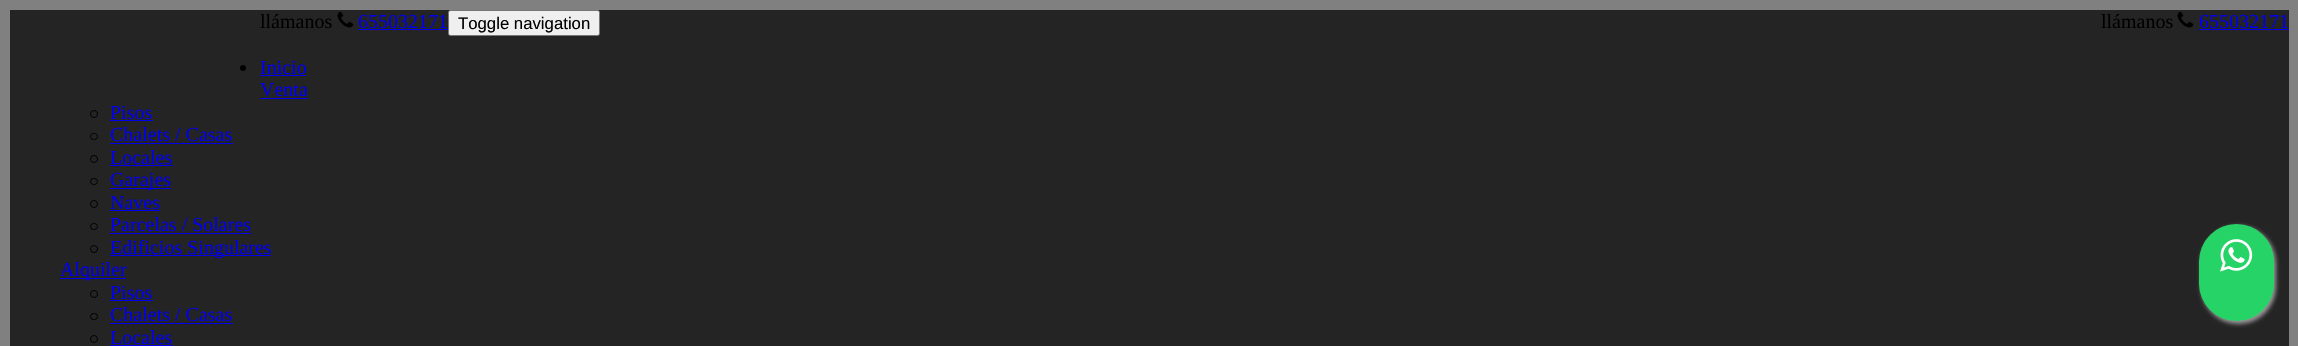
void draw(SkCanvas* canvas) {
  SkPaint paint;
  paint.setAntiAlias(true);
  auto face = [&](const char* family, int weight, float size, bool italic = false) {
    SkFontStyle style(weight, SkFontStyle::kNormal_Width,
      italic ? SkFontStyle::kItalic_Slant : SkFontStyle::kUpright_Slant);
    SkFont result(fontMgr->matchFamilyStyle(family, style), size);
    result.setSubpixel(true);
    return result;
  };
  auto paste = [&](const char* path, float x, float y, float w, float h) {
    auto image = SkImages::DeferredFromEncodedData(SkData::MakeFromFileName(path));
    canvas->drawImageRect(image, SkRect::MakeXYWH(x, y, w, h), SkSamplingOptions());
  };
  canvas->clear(0xff808080);
  paint.setColor(0xff242424);
  canvas->drawRect(SkRect::MakeXYWH(10, 10, 2279, 336), paint);
  paste("img/1.png", 337, 11, 17, 17);
  paint.setColor(0xff0000ee);
  canvas->drawRect(SkRect::MakeXYWH(358, 29, 90, 1), paint);
  paint.setColor(0xffefefef);
  canvas->drawRoundRect(SkRect::MakeXYWH(448.5f, 10.5f, 151, 25), 2, 2, paint);
  paint.setStroke(true);
  paint.setStrokeWidth(1);
  paint.setColor(0xff767676);
  canvas->drawRoundRect(SkRect::MakeXYWH(448.5f, 10.5f, 151, 25), 2, 2, paint);
  paint.setStroke(false);
  paint.setColor(0xff000000);
  canvas->drawCircle(243, 68, 3, paint);
  paint.setColor(0xff0000ee);
  canvas->drawRect(SkRect::MakeXYWH(260, 75, 46, 1), paint);
  canvas->drawRect(SkRect::MakeXYWH(260, 98, 48, 1), paint);
  paint.setStroke(true);
  paint.setColor(0xff000000);
  canvas->drawCircle(94, 114, 3.5f, paint);
  paint.setStroke(false);
  paint.setColor(0xff0000ee);
  canvas->drawRect(SkRect::MakeXYWH(110, 120, 43, 1), paint);
  paint.setStroke(true);
  paint.setColor(0xff000000);
  canvas->drawRoundRect(SkRect::MakeXYWH(90.5f, 133.5f, 7, 6), 3, 3, paint);
  paint.setStroke(false);
  paint.setColor(0xff0000ee);
  canvas->drawRect(SkRect::MakeXYWH(110, 143, 123, 1), paint);
  paint.setStroke(true);
  paint.setColor(0xff000000);
  canvas->drawCircle(94, 159, 3.5f, paint);
  paint.setStroke(false);
  paint.setColor(0xff0000ee);
  canvas->drawRect(SkRect::MakeXYWH(110, 165, 63, 1), paint);
  paint.setStroke(true);
  paint.setColor(0xff000000);
  canvas->drawRoundRect(SkRect::MakeXYWH(90.5f, 178.5f, 7, 6), 3, 3, paint);
  paint.setStroke(false);
  paint.setColor(0xff0000ee);
  canvas->drawRect(SkRect::MakeXYWH(110, 188, 61, 1), paint);
  paint.setStroke(true);
  paint.setColor(0xff000000);
  canvas->drawCircle(94, 204, 3.5f, paint);
  paint.setStroke(false);
  paint.setColor(0xff0000ee);
  canvas->drawRect(SkRect::MakeXYWH(110, 210, 50, 1), paint);
  paint.setStroke(true);
  paint.setColor(0xff000000);
  canvas->drawRoundRect(SkRect::MakeXYWH(90.5f, 223.5f, 7, 6), 3, 3, paint);
  paint.setStroke(false);
  paint.setColor(0xff0000ee);
  canvas->drawRect(SkRect::MakeXYWH(110, 233, 141, 1), paint);
  paint.setStroke(true);
  paint.setColor(0xff000000);
  canvas->drawCircle(94, 249, 3.5f, paint);
  paint.setStroke(false);
  paint.setColor(0xff0000ee);
  canvas->drawRect(SkRect::MakeXYWH(110, 255, 161, 1), paint);
  canvas->drawRect(SkRect::MakeXYWH(60, 278, 66, 1), paint);
  paint.setStroke(true);
  paint.setColor(0xff000000);
  canvas->drawCircle(94, 294, 3.5f, paint);
  paint.setStroke(false);
  paint.setColor(0xff0000ee);
  canvas->drawRect(SkRect::MakeXYWH(110, 300, 43, 1), paint);
  paint.setStroke(true);
  paint.setColor(0xff000000);
  canvas->drawRoundRect(SkRect::MakeXYWH(90.5f, 313.5f, 7, 6), 3, 3, paint);
  paint.setStroke(false);
  paint.setColor(0xff0000ee);
  canvas->drawRect(SkRect::MakeXYWH(110, 323, 123, 1), paint);
  paint.setStroke(true);
  paint.setColor(0xff000000);
  canvas->drawCircle(94, 339, 3.5f, paint);
  paint.setStroke(false);
  paint.setColor(0xff0000ee);
  canvas->drawRect(SkRect::MakeXYWH(110, 345, 63, 1), paint);
  paste("img/1.png", 2177, 11, 17, 17);
  canvas->drawRect(SkRect::MakeXYWH(2199, 29, 90, 1), paint);
  paint.setColor(0xff999999);
  paint.setMaskFilter(SkMaskFilter::MakeBlur(kNormal_SkBlurStyle, 2));
  canvas->drawRoundRect(SkRect::MakeXYWH(2201, 226, 75, 98), 37.5f, 37.5f, paint);
  paint.setMaskFilter(nullptr);
  paint.setColor(0xff25d366);
  canvas->drawRoundRect(SkRect::MakeXYWH(2199, 224, 75, 97), 37.5f, 37.5f, paint);
  paste("img/2.png", 2220, 239, 33, 33);
  auto f0 = face("Liberation Serif", 400, 20);
  paint.setColor(0xff000000);
  canvas->drawString("llámanos", 260, 28, f0, paint);
  paint.setColor(0xff0000ee);
  canvas->drawString("655032171", 358, 28, f0, paint);
  auto f1 = face("Liberation Sans", 400, 16.75f);
  paint.setColor(0xff000000);
  canvas->drawString("Toggle navigation", 458, 29, f1, paint);
  paint.setColor(0xff0000ee);
  {
    const struct { const char* s; float x, y; } items[] = {
      {"Inicio", 260, 74},
      {"Venta", 260, 96},
      {"Pisos", 110, 119},
      {"Chalets / Casas", 110, 141},
      {"Locales", 110, 164},
      {"Garajes", 110, 186},
      {"Naves", 110, 209},
      {"Parcelas / Solares", 110, 231},
      {"Edificios Singulares", 110, 254},
      {"Alquiler", 60, 276},
      {"Pisos", 110, 299},
      {"Chalets / Casas", 110, 321},
      {"Locales", 110, 344},
    };
    for (auto [s, x, y] : items) {
      canvas->drawString(s, x, y, f0, paint);
    }
  }
  paint.setColor(0xff000000);
  canvas->drawString("llámanos", 2101, 28, f0, paint);
  paint.setColor(0xff0000ee);
  canvas->drawString("655032171", 2199, 28, f0, paint);
}
